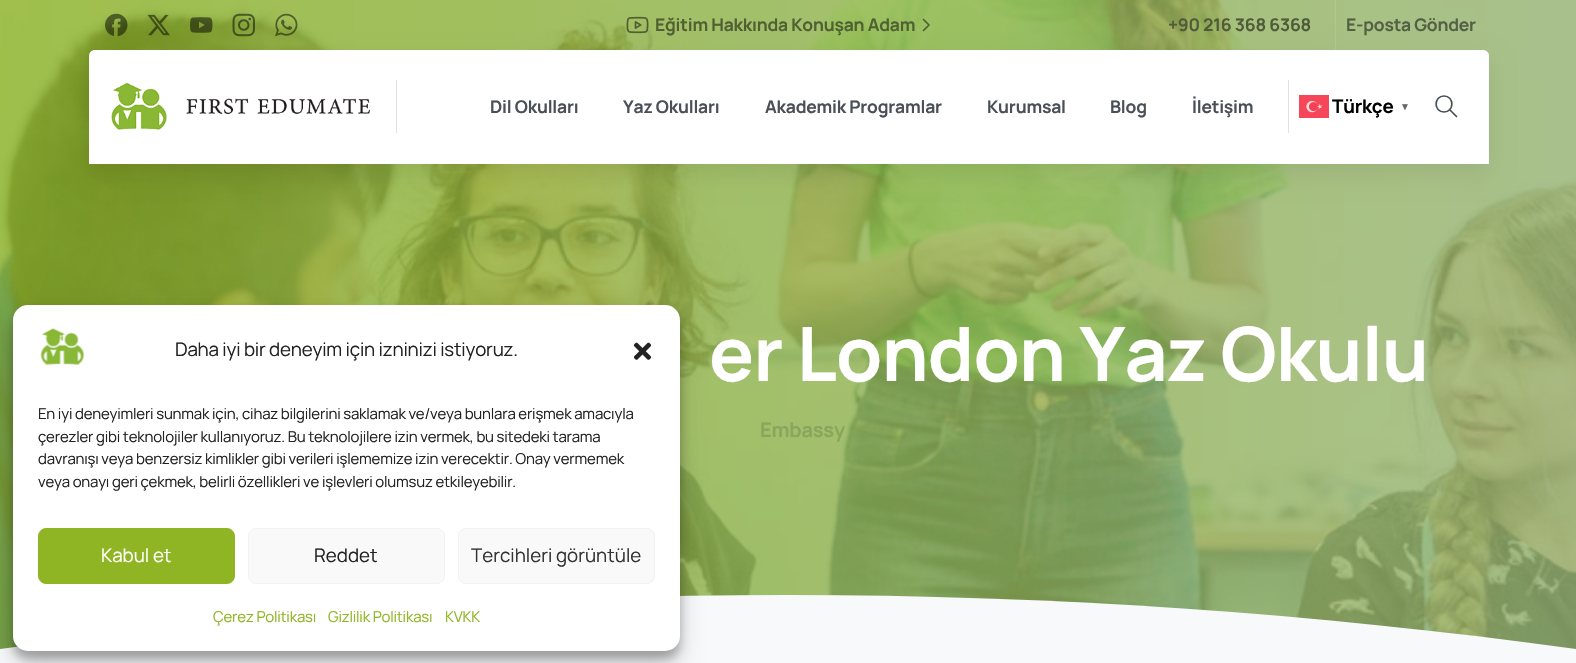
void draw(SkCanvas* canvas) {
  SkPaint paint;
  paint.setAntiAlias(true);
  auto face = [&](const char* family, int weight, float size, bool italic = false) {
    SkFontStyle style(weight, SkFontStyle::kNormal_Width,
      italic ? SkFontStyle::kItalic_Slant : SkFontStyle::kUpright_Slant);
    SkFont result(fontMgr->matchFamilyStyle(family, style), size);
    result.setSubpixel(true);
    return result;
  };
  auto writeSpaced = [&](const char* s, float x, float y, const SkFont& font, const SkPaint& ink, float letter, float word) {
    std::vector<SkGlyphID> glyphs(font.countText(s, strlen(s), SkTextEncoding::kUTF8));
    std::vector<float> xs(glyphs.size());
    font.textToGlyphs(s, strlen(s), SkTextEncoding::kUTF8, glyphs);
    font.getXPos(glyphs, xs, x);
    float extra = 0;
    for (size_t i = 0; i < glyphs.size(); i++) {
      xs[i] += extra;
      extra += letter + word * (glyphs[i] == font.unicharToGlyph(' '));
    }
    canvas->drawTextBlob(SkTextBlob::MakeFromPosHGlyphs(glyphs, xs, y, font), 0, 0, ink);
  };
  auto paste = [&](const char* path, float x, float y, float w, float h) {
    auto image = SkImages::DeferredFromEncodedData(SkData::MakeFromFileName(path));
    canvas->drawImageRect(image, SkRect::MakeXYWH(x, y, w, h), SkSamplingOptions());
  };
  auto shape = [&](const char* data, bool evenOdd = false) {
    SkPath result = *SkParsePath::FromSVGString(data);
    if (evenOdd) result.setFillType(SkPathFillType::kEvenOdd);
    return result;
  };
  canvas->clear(0xffffffff);
  {
    const SkColor colors[] = {0xff90b524, 0xff99b572};
    const float stops[] = {0, 1};
    const SkPoint ends[] = {{0, 327}, {1576, 327}};
    paint.setShader(SkGradientShader::MakeLinear(ends, colors, stops, 2, SkTileMode::kClamp));
    paint.setAlpha(255);
  }
  canvas->drawRect(SkRect::MakeXYWH(0, 0, 1576, 649), paint);
  paste("img/9.png", 0, 0, 1576, 649);
  paint.setShader(nullptr);
  paint.setColor(0x14000000);
  paint.setMaskFilter(SkMaskFilter::MakeBlur(kNormal_SkBlurStyle, 12));
  canvas->drawRoundRect(SkRect::MakeXYWH(89, 60, 1400, 114), 6, 6, paint);
  paint.setMaskFilter(nullptr);
  paste("img/1.png", 105, 13, 23, 24);
  paste("img/2.png", 147, 14, 23, 22);
  paste("img/3.png", 190, 17, 23, 16);
  paste("img/4.png", 232, 13, 23, 24);
  paste("img/5.png", 275, 13, 23, 24);
  paste("img/6.png", 626, 16, 23, 18);
  paint.setStroke(true);
  paint.setStrokeWidth(1.7f);
  paint.setStrokeCap(SkPaint::kRound_Cap);
  paint.setStrokeJoin(SkPaint::kRound_Join);
  paint.setColor(0xff4e6031);
  canvas->drawPath(shape("M923.5 30.5L929 25L923.5 19.5"), paint);
  paint.setStroke(false);
  paint.setColor(0x1affffff);
  canvas->drawRect(SkRect::MakeXYWH(1335, 0, 1, 50), paint);
  paint.setColor(0xffffffff);
  canvas->drawPath(shape("M95 50H1483C1486.5 50 1489 52.5 1489 56V164H89V56C89 52.5 91.5 50 95 50Z"), paint);
  paste("img/7.png", 111, 82, 259, 48);
  paint.setColor(0xffdee2e6);
  canvas->drawRect(SkRect::MakeXYWH(396, 80, 1, 53), paint);
  canvas->drawRect(SkRect::MakeXYWH(1288, 80, 1, 53), paint);
  paste("img/8.png", 1299, 95, 30, 23);
  paint.setStroke(true);
  paint.setColor(0xff495057);
  canvas->drawPath(shape("M1444 112C1454.5 112 1454.5 96 1444 96C1433.5 96 1433.5 112 1444 112ZM1449.5 109.5L1456.5 116.5"), paint);
  paint.setStroke(false);
  paint.setColor(0xfff8f9fa);
  canvas->drawPath(shape("M0 649C522 577 1054 577 1576 649V655H0Z"), paint);
  canvas->drawRect(SkRect::MakeXYWH(0, 655, 1576, 8), paint);
  paint.setColor(0x3b000000);
  paint.setMaskFilter(SkMaskFilter::MakeBlur(kNormal_SkBlurStyle, 4));
  canvas->drawRoundRect(SkRect::MakeXYWH(13, 313, 667, 346), 15, 15, paint);
  paint.setMaskFilter(nullptr);
  paint.setColor(0x30000000);
  paint.setMaskFilter(SkMaskFilter::MakeBlur(kNormal_SkBlurStyle, 12.5f));
  canvas->drawRoundRect(SkRect::MakeXYWH(13, 318, 667, 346), 15, 15, paint);
  paint.setMaskFilter(nullptr);
  paint.setColor(0xffffffff);
  canvas->drawRoundRect(SkRect::MakeXYWH(13, 305, 667, 346), 15, 15, paint);
  paste("img/10.png", 40, 328, 45, 38);
  paste("img/11.png", 633, 342, 19, 18);
  paint.setColor(0xff90b524);
  canvas->drawRoundRect(SkRect::MakeXYWH(38.5f, 528.5f, 196, 55), 7.5f, 7.5f, paint);
  paint.setStroke(true);
  paint.setStrokeWidth(1);
  paint.setStrokeCap(SkPaint::kButt_Cap);
  paint.setStrokeJoin(SkPaint::kMiter_Join);
  canvas->drawRoundRect(SkRect::MakeXYWH(38.5f, 528.5f, 196, 55), 7.5f, 7.5f, paint);
  paint.setStroke(false);
  paint.setColor(0xfff9f9f9);
  canvas->drawRoundRect(SkRect::MakeXYWH(248.5f, 528.5f, 196, 55), 7.5f, 7.5f, paint);
  paint.setStroke(true);
  paint.setColor(0xfff2f2f2);
  canvas->drawRoundRect(SkRect::MakeXYWH(248.5f, 528.5f, 196, 55), 7.5f, 7.5f, paint);
  paint.setStroke(false);
  paint.setColor(0xfff9f9f9);
  canvas->drawRoundRect(SkRect::MakeXYWH(458.5f, 528.5f, 196, 55), 7.5f, 7.5f, paint);
  paint.setStroke(true);
  paint.setColor(0xfff2f2f2);
  canvas->drawRoundRect(SkRect::MakeXYWH(458.5f, 528.5f, 196, 55), 7.5f, 7.5f, paint);
  auto f0 = face("Manrope", 700, 17.5f);
  paint.setStroke(false);
  paint.setColor(0xff506032);
  writeSpaced("Eğitim Hakkında Konuşan Adam", 655, 31, f0, paint, -0.2f, 0);
  paint.setColor(0xff505c39);
  writeSpaced("+90 216 368 6368", 1168, 31, f0, paint, -0.2f, 0);
  paint.setColor(0xff546043);
  writeSpaced("E-posta Gönder", 1346, 31, f0, paint, -0.2f, 0);
  paint.setColor(0xff495057);
  {
    const struct { const char* s; float x, y; } items[] = {
      {"Dil Okulları", 490, 113},
      {"Yaz Okulları", 623, 113},
      {"Akademik Programlar", 765, 113},
      {"Kurumsal", 987, 113},
      {"Blog", 1110, 113},
      {"İletişim", 1192, 113},
    };
    for (auto [s, x, y] : items) {
      writeSpaced(s, x, y, f0, paint, -0.2f, 0);
    }
  }
  auto f1 = face("Manrope", 700, 18.75f);
  paint.setColor(0xff000000);
  writeSpaced("Türkçe", 1332, 113, f1, paint, -0.2f, 0);
  auto f2 = face("Liberation Sans", 700, 10);
  paint.setColor(0xff666666);
  writeSpaced("▼", 1400, 110, f2, paint, -0.2f, 0);
  auto f3 = face("Manrope", 700, 75);
  paint.setColor(0xffffffff);
  writeSpaced("er London Yaz Okulu", 709, 381, f3, paint, -0.75f, 0);
  auto f4 = face("Manrope", 700, 20);
  paint.setColor(0xff88a65c);
  writeSpaced("Embassy", 760, 437, f4, paint, -0.2f, 0);
  auto f5 = face("Manrope", 400, 18.75f);
  paint.setColor(0xff222222);
  writeSpaced("Daha iyi bir deneyim için izninizi istiyoruz.", 175, 356, f5, paint, -0.2f, 0);
  auto f6 = face("Manrope", 400, 15);
  {
    const struct { const char* s; float x, y; } items[] = {
      {"En iyi deneyimleri sunmak için, cihaz bilgilerini saklamak ve/veya bunlara erişmek amacıyla", 38, 419},
      {"çerezler gibi teknolojiler kullanıyoruz. Bu teknolojilere izin vermek, bu sitedeki tarama", 38, 442},
      {"davranışı veya benzersiz kimlikler gibi verileri işlememize izin verecektir. Onay vermemek", 38, 464},
      {"veya onayı geri çekmek, belirli özellikleri ve işlevleri olumsuz etkileyebilir.", 38, 487},
    };
    for (auto [s, x, y] : items) {
      writeSpaced(s, x, y, f6, paint, -0.2f, 0);
    }
  }
  paint.setColor(0xffffffff);
  canvas->drawString("Kabul et", 101, 562, f5, paint);
  paint.setColor(0xff222222);
  canvas->drawString("Reddet", 314, 562, f5, paint);
  paint.setColor(0xff333333);
  canvas->drawString("Tercihleri görüntüle", 471, 562, f5, paint);
  paint.setColor(0xff90b524);
  {
    const struct { const char* s; float x, y; } items[] = {
      {"Çerez Politikası", 213, 622},
      {"Gizlilik Politikası", 328, 622},
      {"KVKK", 445, 622},
    };
    for (auto [s, x, y] : items) {
      writeSpaced(s, x, y, f6, paint, -0.2f, 0);
    }
  }
}
